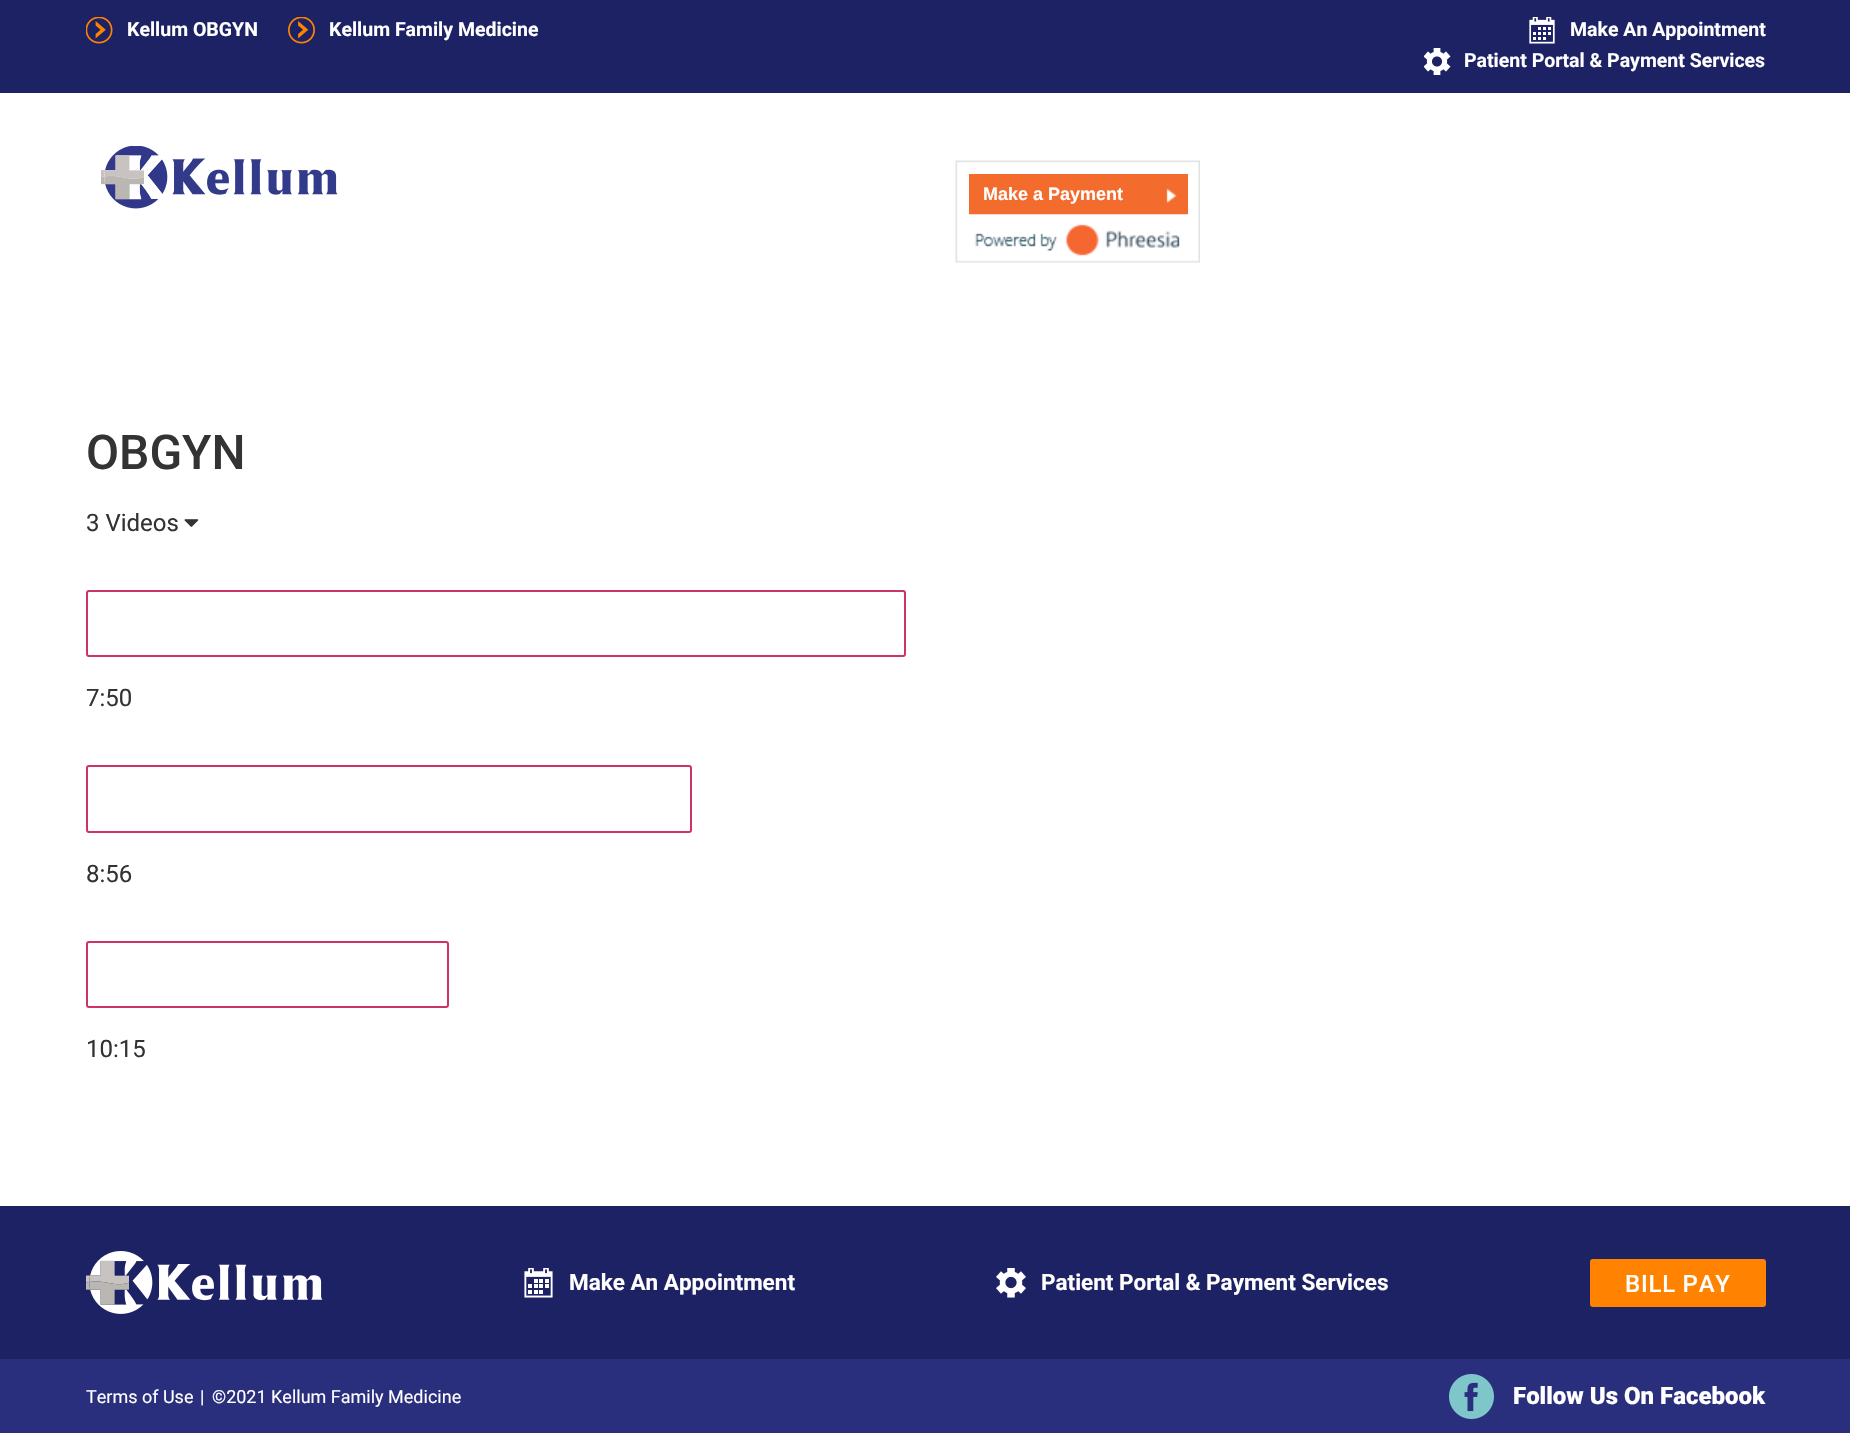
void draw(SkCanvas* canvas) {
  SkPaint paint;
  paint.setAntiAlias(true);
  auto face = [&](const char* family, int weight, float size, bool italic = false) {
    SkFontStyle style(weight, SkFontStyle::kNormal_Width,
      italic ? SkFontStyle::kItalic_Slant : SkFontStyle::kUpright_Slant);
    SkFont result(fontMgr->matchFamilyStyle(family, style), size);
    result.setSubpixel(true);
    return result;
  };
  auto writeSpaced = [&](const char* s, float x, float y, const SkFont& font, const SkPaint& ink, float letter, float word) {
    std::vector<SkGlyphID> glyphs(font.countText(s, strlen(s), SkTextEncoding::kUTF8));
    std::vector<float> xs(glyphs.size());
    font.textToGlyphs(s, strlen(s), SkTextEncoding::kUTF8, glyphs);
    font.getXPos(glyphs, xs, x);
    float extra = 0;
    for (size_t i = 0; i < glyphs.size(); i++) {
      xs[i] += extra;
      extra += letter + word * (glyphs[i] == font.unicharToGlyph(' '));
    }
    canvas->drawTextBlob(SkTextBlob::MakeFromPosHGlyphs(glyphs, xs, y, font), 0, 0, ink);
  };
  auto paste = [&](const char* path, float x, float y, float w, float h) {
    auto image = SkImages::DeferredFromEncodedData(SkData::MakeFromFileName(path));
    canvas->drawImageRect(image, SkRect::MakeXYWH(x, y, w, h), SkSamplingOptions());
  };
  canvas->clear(0xffffffff);
  paint.setColor(0xff1d2265);
  canvas->drawRect(SkRect::MakeXYWH(0, 0, 1850, 93), paint);
  paste("img/1.png", 86, 17, 27, 27);
  paste("img/2.png", 288, 17, 27, 27);
  paste("img/3.png", 1529, 17, 26, 27);
  paste("img/4.png", 1424, 48, 27, 27);
  paste("img/5.png", 101, 146, 237, 63);
  paste("img/6.png", 955, 160, 245, 103);
  paste("img/7.png", 969, 174, 219, 41);
  paste("img/8.png", 184, 519, 15, 8);
  paint.setStroke(true);
  paint.setStrokeWidth(2);
  paint.setColor(0xffcc3366);
  canvas->drawRoundRect(SkRect::MakeXYWH(87, 591, 818, 65), 2, 2, paint);
  canvas->drawRoundRect(SkRect::MakeXYWH(87, 766, 604, 66), 2, 2, paint);
  canvas->drawRoundRect(SkRect::MakeXYWH(87, 942, 361, 65), 2, 2, paint);
  paint.setStroke(false);
  paint.setColor(0xff1d2265);
  canvas->drawRect(SkRect::MakeXYWH(0, 1206, 1850, 153), paint);
  paste("img/9.png", 86, 1251, 237, 63);
  paste("img/10.png", 524, 1268, 29, 30);
  paste("img/11.png", 996, 1268, 30, 30);
  paint.setColor(0xffff8200);
  canvas->drawRoundRect(SkRect::MakeXYWH(1590, 1259, 176, 48), 3, 3, paint);
  paint.setColor(0xff292f7c);
  canvas->drawRect(SkRect::MakeXYWH(0, 1359, 1850, 74), paint);
  paste("img/12.png", 1449, 1374, 45, 45);
  auto f0 = face("Roboto", 700, 19.5f);
  paint.setColor(0xffffffff);
  {
    const struct { const char* s; float x, y; } items[] = {
      {"Kellum OBGYN", 127, 36},
      {"Kellum Family Medicine", 329, 36},
      {"Make An Appointment", 1570, 36},
      {"Patient Portal & Payment Services", 1464, 67},
    };
    for (auto [s, x, y] : items) {
      canvas->drawString(s, x, y, f0, paint);
    }
  }
  auto f1 = face("Liberation Sans", 700, 18);
  canvas->drawString("Make a Payment", 983, 200, f1, paint);
  auto f2 = face("Roboto", 500, 48);
  paint.setColor(0xff333333);
  canvas->drawString("OBGYN", 86, 469, f2, paint);
  auto f3 = face("Roboto", 400, 24);
  {
    const struct { const char* s; float x, y; } items[] = {
      {"3 Videos", 86, 531},
      {"7:50", 86, 706},
      {"8:56", 86, 882},
      {"10:15", 86, 1057},
    };
    for (auto [s, x, y] : items) {
      canvas->drawString(s, x, y, f3, paint);
    }
  }
  auto f4 = face("Roboto", 700, 22.5f);
  paint.setColor(0xffffffff);
  canvas->drawString("Make An Appointment", 569, 1290, f4, paint);
  canvas->drawString("Patient Portal & Payment Services", 1041, 1290, f4, paint);
  auto f5 = face("Roboto", 500, 24);
  writeSpaced("BILL PAY", 1625, 1292, f5, paint, 0.75f, 0);
  auto f6 = face("Roboto", 400, 18);
  {
    const struct { const char* s; float x, y; } items[] = {
      {"Terms of Use", 86, 1403},
      {"|", 200, 1403},
      {"©2021 Kellum Family Medicine", 212, 1403},
    };
    for (auto [s, x, y] : items) {
      canvas->drawString(s, x, y, f6, paint);
    }
  }
  auto f7 = face("Roboto", 900, 24);
  canvas->drawString("Follow Us On Facebook", 1513, 1404, f7, paint);
}
